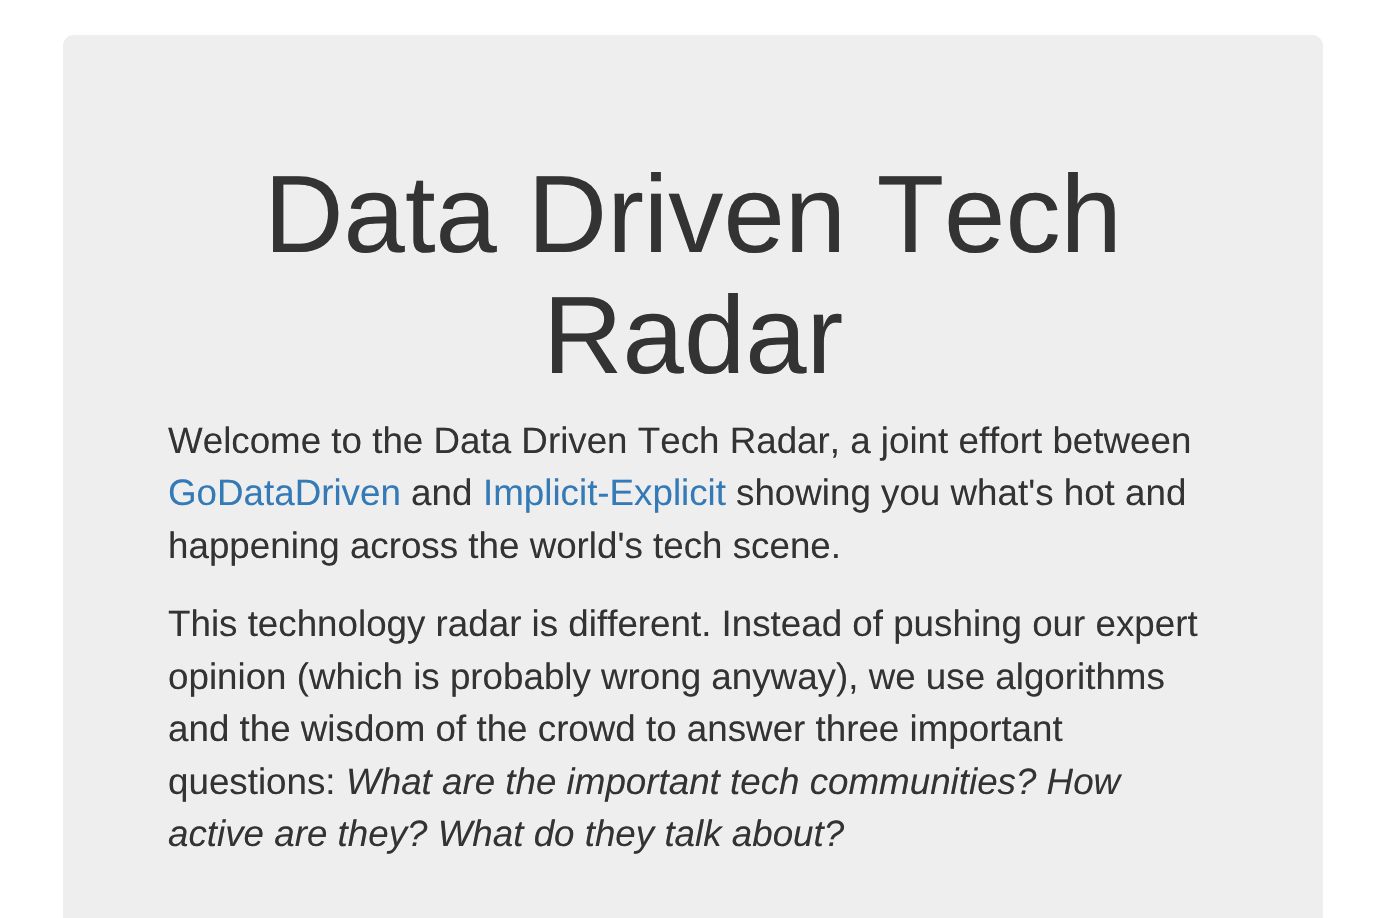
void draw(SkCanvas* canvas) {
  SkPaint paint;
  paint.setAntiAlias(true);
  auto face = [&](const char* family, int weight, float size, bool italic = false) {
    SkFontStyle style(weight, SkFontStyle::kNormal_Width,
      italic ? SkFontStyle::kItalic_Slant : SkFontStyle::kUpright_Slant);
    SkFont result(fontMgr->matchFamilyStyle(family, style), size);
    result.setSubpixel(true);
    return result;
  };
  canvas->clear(0xffffffff);
  paint.setColor(0xffeeeeee);
  canvas->drawRoundRect(SkRect::MakeXYWH(63, 35, 1260, 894), 11, 11, paint);
  auto f0 = face("Liberation Sans", 400, 110.25f);
  paint.setColor(0xff333333);
  canvas->drawString("Data Driven Tech", 264, 252, f0, paint);
  canvas->drawString("Radar", 543, 373, f0, paint);
  auto f1 = face("Liberation Sans", 400, 36.75f);
  canvas->drawString("Welcome to the Data Driven Tech Radar, a joint effort between", 168, 453, f1, paint);
  paint.setColor(0xff337ab7);
  canvas->drawString("GoDataDriven", 168, 505, f1, paint);
  paint.setColor(0xff333333);
  canvas->drawString("and", 411, 505, f1, paint);
  paint.setColor(0xff337ab7);
  canvas->drawString("Implicit-Explicit", 483, 505, f1, paint);
  paint.setColor(0xff333333);
  {
    const struct { const char* s; float x, y; } items[] = {
      {"showing you what's hot and", 736, 505},
      {"happening across the world's tech scene.", 168, 558},
      {"This technology radar is different. Instead of pushing our expert", 168, 636},
      {"opinion (which is probably wrong anyway), we use algorithms", 168, 689},
      {"and the wisdom of the crowd to answer three important", 168, 741},
      {"questions:", 168, 794},
    };
    for (auto [s, x, y] : items) {
      canvas->drawString(s, x, y, f1, paint);
    }
  }
  auto f2 = face("Liberation Sans", 400, 36.75f, true);
  canvas->drawString("What are the important tech communities? How", 346, 794, f2, paint);
  canvas->drawString("active are they? What do they talk about?", 168, 846, f2, paint);
}
